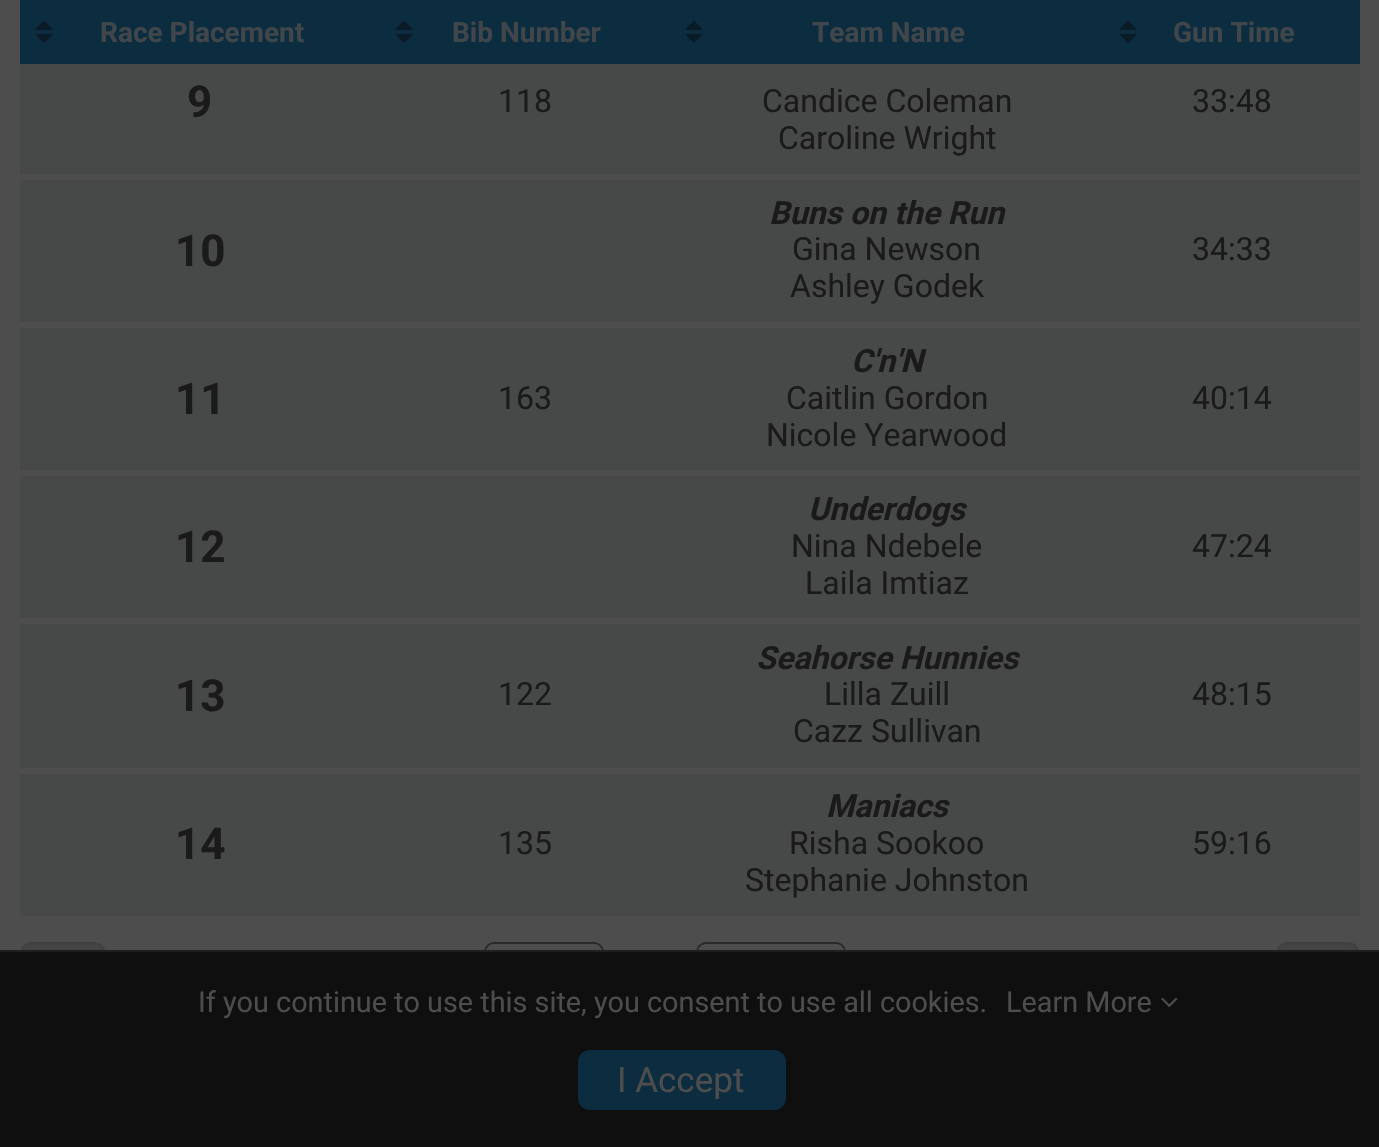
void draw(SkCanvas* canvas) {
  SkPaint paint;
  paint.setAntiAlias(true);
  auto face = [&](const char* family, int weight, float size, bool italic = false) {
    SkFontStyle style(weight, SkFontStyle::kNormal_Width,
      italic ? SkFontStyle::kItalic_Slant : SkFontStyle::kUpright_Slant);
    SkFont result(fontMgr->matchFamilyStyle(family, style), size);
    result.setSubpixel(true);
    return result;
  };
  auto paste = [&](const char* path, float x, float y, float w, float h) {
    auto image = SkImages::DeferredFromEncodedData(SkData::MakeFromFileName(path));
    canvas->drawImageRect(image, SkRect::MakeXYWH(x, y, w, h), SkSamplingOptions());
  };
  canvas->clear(0xff4d4d4d);
  paint.setColor(0xff0c2c40);
  canvas->drawRect(SkRect::MakeXYWH(20, 0, 1340, 64), paint);
  paste("img/1.png", 36, 21, 16, 22);
  paste("img/1.png", 396, 21, 16, 22);
  paste("img/1.png", 686, 21, 16, 22);
  paste("img/1.png", 1120, 21, 16, 22);
  {
    const struct { float x, y, w, h; SkColor color; } items[] = {
      {20, 64, 1340, 110, 0xff474848},
      {20, 180, 1340, 142, 0xff474848},
      {20, 328, 1340, 142, 0xff474848},
      {20, 476, 1340, 142, 0xff474848},
      {20, 624, 1340, 144, 0xff474848},
      {20, 774, 1340, 142, 0xff474848},
    };
    for (auto [x, y, w, h, color] : items) {
      paint.setColor(color);
      canvas->drawRect(SkRect::MakeXYWH(x, y, w, h), paint);
    }
  }
  paint.setColor(0xff444444);
  canvas->drawRoundRect(SkRect::MakeXYWH(21, 943, 84, 86), 11, 11, paint);
  paint.setStroke(true);
  paint.setStrokeWidth(2);
  paint.setColor(0xff404040);
  canvas->drawRoundRect(SkRect::MakeXYWH(21, 943, 84, 86), 11, 11, paint);
  paint.setColor(0xff2a2a2a);
  canvas->drawRoundRect(SkRect::MakeXYWH(485, 943, 118, 70), 9, 9, paint);
  canvas->drawRoundRect(SkRect::MakeXYWH(697, 943, 148, 70), 9, 9, paint);
  paint.setStroke(false);
  paint.setColor(0xff444444);
  canvas->drawRoundRect(SkRect::MakeXYWH(1277, 943, 82, 86), 11, 11, paint);
  paint.setStroke(true);
  paint.setColor(0xff404040);
  canvas->drawRoundRect(SkRect::MakeXYWH(1277, 943, 82, 86), 11, 11, paint);
  paint.setStroke(false);
  paint.setColor(0xff0f0f0f);
  canvas->drawRect(SkRect::MakeXYWH(0, 952, 1379, 195), paint);
  paint.setColor(0xff1f1f1f);
  canvas->drawRect(SkRect::MakeXYWH(0, 950, 1379, 2), paint);
  paste("img/2.png", 1161, 997, 17, 11);
  paint.setColor(0xff0c2c40);
  canvas->drawRoundRect(SkRect::MakeXYWH(578, 1050, 208, 60), 12, 12, paint);
  auto f0 = face("Roboto", 700, 28);
  paint.setColor(0xff40464a);
  {
    const struct { const char* s; float x, y; } items[] = {
      {"Race Placement", 100, 42},
      {"Bib Number", 452, 42},
      {"Team Name", 812, 42},
      {"Gun Time", 1173, 42},
    };
    for (auto [s, x, y] : items) {
      canvas->drawString(s, x, y, f0, paint);
    }
  }
  auto f1 = face("Roboto", 700, 44);
  paint.setColor(0xff1a1a1a);
  canvas->drawString("9", 187, 117, f1, paint);
  auto f2 = face("Roboto", 400, 32);
  {
    const struct { const char* s; float x, y; } items[] = {
      {"118", 498, 112},
      {"Candice Coleman", 762, 112},
      {"Caroline Wright", 778, 149},
      {"33:48", 1192, 112},
    };
    for (auto [s, x, y] : items) {
      canvas->drawString(s, x, y, f2, paint);
    }
  }
  canvas->drawString("10", 175, 266, f1, paint);
  auto f3 = face("Roboto", 700, 32, true);
  canvas->drawString("Buns on the Run", 769, 224, f3, paint);
  {
    const struct { const char* s; float x, y; } items[] = {
      {"Gina Newson", 792, 260},
      {"Ashley Godek", 790, 297},
      {"34:33", 1192, 260},
    };
    for (auto [s, x, y] : items) {
      canvas->drawString(s, x, y, f2, paint);
    }
  }
  canvas->drawString("11", 175, 414, f1, paint);
  canvas->drawString("163", 498, 409, f2, paint);
  canvas->drawString("C'n'N", 851, 372, f3, paint);
  {
    const struct { const char* s; float x, y; } items[] = {
      {"Caitlin Gordon", 786, 409},
      {"Nicole Yearwood", 766, 446},
      {"40:14", 1192, 409},
    };
    for (auto [s, x, y] : items) {
      canvas->drawString(s, x, y, f2, paint);
    }
  }
  canvas->drawString("12", 175, 562, f1, paint);
  canvas->drawString("Underdogs", 808, 520, f3, paint);
  {
    const struct { const char* s; float x, y; } items[] = {
      {"Nina Ndebele", 791, 557},
      {"Laila Imtiaz", 805, 594},
      {"47:24", 1192, 557},
    };
    for (auto [s, x, y] : items) {
      canvas->drawString(s, x, y, f2, paint);
    }
  }
  canvas->drawString("13", 175, 711, f1, paint);
  canvas->drawString("122", 498, 705, f2, paint);
  canvas->drawString("Seahorse Hunnies", 756, 669, f3, paint);
  {
    const struct { const char* s; float x, y; } items[] = {
      {"Lilla Zuill", 824, 705},
      {"Cazz Sullivan", 793, 742},
      {"48:15", 1192, 705},
    };
    for (auto [s, x, y] : items) {
      canvas->drawString(s, x, y, f2, paint);
    }
  }
  canvas->drawString("14", 175, 859, f1, paint);
  canvas->drawString("135", 498, 854, f2, paint);
  canvas->drawString("Maniacs", 826, 817, f3, paint);
  {
    const struct { const char* s; float x, y; } items[] = {
      {"Risha Sookoo", 789, 854},
      {"Stephanie Johnston", 745, 891},
      {"59:16", 1192, 854},
    };
    for (auto [s, x, y] : items) {
      canvas->drawString(s, x, y, f2, paint);
    }
  }
  auto f4 = face("Roboto", 400, 28.8f);
  paint.setColor(0xff4d4d4d);
  canvas->drawString("If you continue to use this site, you consent to use all cookies.", 198, 1012, f4, paint);
  canvas->drawString("Learn More", 1006, 1012, f4, paint);
  auto f5 = face("Roboto", 400, 35);
  canvas->drawString("I Accept", 617, 1092, f5, paint);
}
